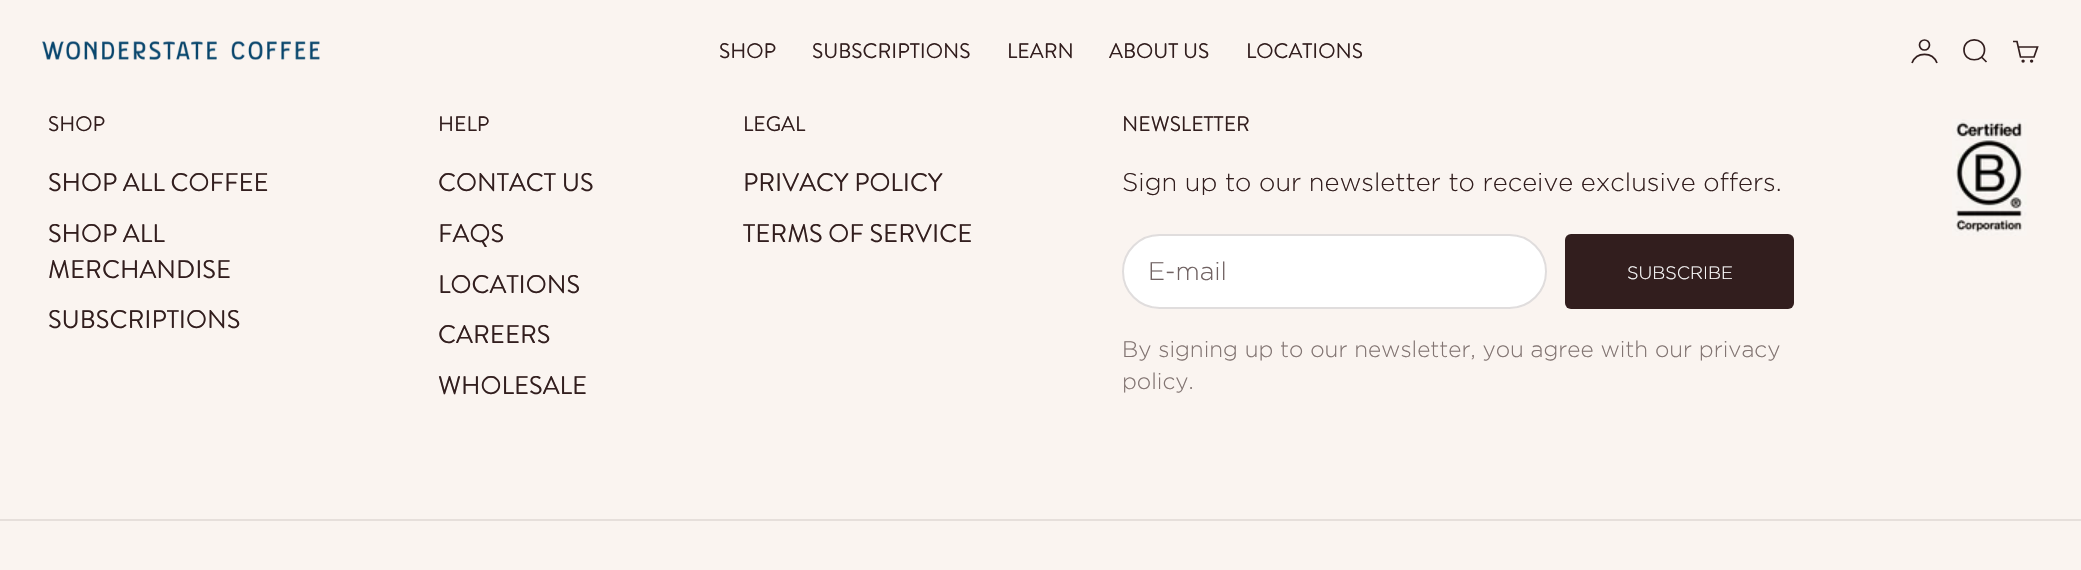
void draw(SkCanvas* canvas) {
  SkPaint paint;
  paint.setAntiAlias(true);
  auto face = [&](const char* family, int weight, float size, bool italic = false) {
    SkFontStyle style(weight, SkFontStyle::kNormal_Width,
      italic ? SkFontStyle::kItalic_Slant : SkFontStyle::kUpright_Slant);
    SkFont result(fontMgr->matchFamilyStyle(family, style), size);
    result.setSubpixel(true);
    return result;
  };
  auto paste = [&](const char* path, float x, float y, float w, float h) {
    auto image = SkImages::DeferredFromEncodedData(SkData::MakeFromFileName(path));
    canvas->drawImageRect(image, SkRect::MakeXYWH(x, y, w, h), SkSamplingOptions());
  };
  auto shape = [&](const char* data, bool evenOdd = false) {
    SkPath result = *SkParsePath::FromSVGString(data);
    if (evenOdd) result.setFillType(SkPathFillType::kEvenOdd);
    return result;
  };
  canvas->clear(0xfffaf4f0);
  paste("img/1.png", 42, 41, 278, 19);
  paint.setStroke(true);
  paint.setStrokeWidth(1.7f);
  paint.setColor(0xff321e1e);
  canvas->drawPath(shape("M1937 63C1932.5 51.5 1916.5 51.5 1912 63"), paint);
  canvas->drawCircle(1924.5f, 45, 5, paint);
  canvas->drawPath(shape("M1964 50C1964 63 1984.5 63 1984.5 50C1984.5 36.5 1964 36.5 1964 50ZM1981.5 57L1986.5 62"), paint);
  canvas->drawPath(shape("M2013 41.5H2017L2020.5 57H2034L2037.5 47H2018.5"), paint);
  paint.setStroke(false);
  canvas->drawCircle(2023.1f, 61.1f, 1.7f, paint);
  canvas->drawCircle(2031.6f, 61.1f, 1.7f, paint);
  paint.setColor(0xffffffff);
  canvas->drawRoundRect(SkRect::MakeXYWH(1122, 234, 425, 75), 37.5f, 37.5f, paint);
  paint.setStroke(true);
  paint.setStrokeWidth(2);
  paint.setColor(0x26321e1e);
  canvas->drawRoundRect(SkRect::MakeXYWH(1123, 235, 423, 73), 36.5f, 36.5f, paint);
  paint.setStroke(false);
  paint.setColor(0xff321e1e);
  canvas->drawRoundRect(SkRect::MakeXYWH(1565, 234, 229, 75), 6, 6, paint);
  paste("img/2.png", 1952, 119, 75, 117);
  paint.setColor(0xffe6dfdb);
  canvas->drawRect(SkRect::MakeXYWH(0, 519, 2081, 2), paint);
  auto f0 = face("Brandon Grotesque", 400, 21);
  paint.setColor(0xff321e1e);
  {
    const struct { const char* s; float x, y; } items[] = {
      {"SHOP", 719, 58},
      {"SUBSCRIPTIONS", 812, 58},
      {"LEARN", 1007, 58},
      {"ABOUT US", 1109, 58},
      {"LOCATIONS", 1246, 58},
      {"SHOP", 48, 131},
    };
    for (auto [s, x, y] : items) {
      canvas->drawString(s, x, y, f0, paint);
    }
  }
  auto f1 = face("Brandon Grotesque", 400, 25.5f);
  {
    const struct { const char* s; float x, y; } items[] = {
      {"SHOP ALL COFFEE", 48, 191},
      {"SHOP ALL", 48, 242},
      {"MERCHANDISE", 48, 278},
      {"SUBSCRIPTIONS", 48, 328},
    };
    for (auto [s, x, y] : items) {
      canvas->drawString(s, x, y, f1, paint);
    }
  }
  canvas->drawString("HELP", 438, 131, f0, paint);
  {
    const struct { const char* s; float x, y; } items[] = {
      {"CONTACT US", 438, 191},
      {"FAQS", 438, 242},
      {"LOCATIONS", 438, 293},
      {"CAREERS", 438, 343},
      {"WHOLESALE", 438, 394},
    };
    for (auto [s, x, y] : items) {
      canvas->drawString(s, x, y, f1, paint);
    }
  }
  canvas->drawString("LEGAL", 743, 131, f0, paint);
  canvas->drawString("PRIVACY POLICY", 743, 191, f1, paint);
  canvas->drawString("TERMS OF SERVICE", 743, 242, f1, paint);
  canvas->drawString("NEWSLETTER", 1122, 131, f0, paint);
  auto f2 = face("Gotham", 300, 25.5f);
  canvas->drawString("Sign up to our newsletter to receive exclusive offers.", 1122, 191, f2, paint);
  paint.setColor(0xff706262);
  canvas->drawString("E-mail", 1148, 280, f2, paint);
  auto f3 = face("Gotham", 300, 18);
  paint.setColor(0xffffffff);
  canvas->drawString("SUBSCRIBE", 1627, 279, f3, paint);
  auto f4 = face("Gotham", 300, 22.5f);
  paint.setColor(0xff827472);
  canvas->drawString("By signing up to our newsletter, you agree with our privacy", 1122, 357, f4, paint);
  canvas->drawString("policy.", 1122, 389, f4, paint);
}
